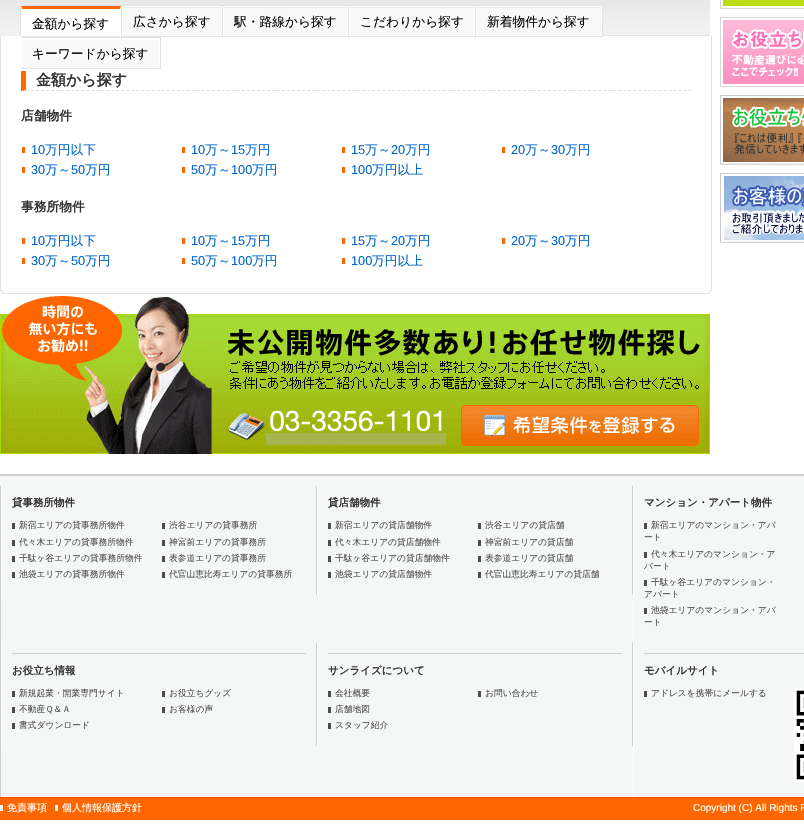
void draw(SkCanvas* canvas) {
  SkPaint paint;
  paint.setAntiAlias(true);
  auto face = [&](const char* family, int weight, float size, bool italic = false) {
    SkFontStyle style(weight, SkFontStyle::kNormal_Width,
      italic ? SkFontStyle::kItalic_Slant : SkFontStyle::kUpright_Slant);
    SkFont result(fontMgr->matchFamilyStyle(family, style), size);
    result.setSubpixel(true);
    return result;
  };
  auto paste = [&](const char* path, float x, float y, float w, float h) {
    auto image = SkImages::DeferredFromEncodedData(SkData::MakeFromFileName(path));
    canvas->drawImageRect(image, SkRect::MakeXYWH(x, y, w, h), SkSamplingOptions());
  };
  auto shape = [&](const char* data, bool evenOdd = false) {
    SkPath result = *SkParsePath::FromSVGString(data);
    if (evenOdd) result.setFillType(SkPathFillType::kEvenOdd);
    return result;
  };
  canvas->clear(0xffffffff);
  paste("img/1.png", 0, 0, 710, 36);
  {
    const struct { float x, y, w, h; SkColor color; } items[] = {
      {603, 35, 107, 1, 0xffe3e3e3},
      {20, 5, 1, 31, 0xffe3e3e3},
      {21, 5, 582, 1, 0xffe3e3e3},
    };
    for (auto [x, y, w, h, color] : items) {
      paint.setColor(color);
      canvas->drawRect(SkRect::MakeXYWH(x, y, w, h), paint);
    }
  }
  canvas->drawPath(shape("M0 36H712V289C712 292 710 294 707 294H5C2 294 0 292 0 289ZM1 36H711V289C711 291 709 293 707 293H5C3 293 1 291 1 289Z", true), paint);
  {
    const struct { float x, y, w, h; SkColor color; } items[] = {
      {121, 5, 1, 32, 0xffe3e3e3},
      {21, 36, 101, 1, 0xffe3e3e3},
      {22, 9, 98, 27, 0xffffffff},
    };
    for (auto [x, y, w, h, color] : items) {
      paint.setColor(color);
      canvas->drawRect(SkRect::MakeXYWH(x, y, w, h), paint);
    }
  }
  paint.setColor(0xffff6600);
  canvas->drawPath(shape("M21 6H121L120 9H22Z"), paint);
  paint.setColor(0xffffffff);
  canvas->drawPath(shape("M121 6V40L120 39V9Z"), paint);
  canvas->drawPath(shape("M21 40V6L22 9V39Z"), paint);
  {
    const struct { float x, y, w, h; SkColor color; } items[] = {
      {123, 8, 98, 28, 0xfff9f9f9},
      {222, 5, 1, 32, 0xffe3e3e3},
      {122, 36, 101, 1, 0xffe3e3e3},
    };
    for (auto [x, y, w, h, color] : items) {
      paint.setColor(color);
      canvas->drawRect(SkRect::MakeXYWH(x, y, w, h), paint);
    }
  }
  canvas->save();
  canvas->clipRect(SkRect::MakeXYWH(122, 6, 100, 30));
  paint.setStroke(true);
  paint.setStrokeWidth(1);
  paint.setColor(0xffffffff);
  canvas->drawRect(SkRect::MakeXYWH(122.5f, 6.5f, 99, 31), paint);
  canvas->restore();
  paint.setStroke(false);
  {
    const struct { float x, y, w, h; SkColor color; } items[] = {
      {224, 8, 123, 28, 0xfff9f9f9},
      {348, 5, 1, 32, 0xffe3e3e3},
      {223, 36, 126, 1, 0xffe3e3e3},
    };
    for (auto [x, y, w, h, color] : items) {
      paint.setColor(color);
      canvas->drawRect(SkRect::MakeXYWH(x, y, w, h), paint);
    }
  }
  canvas->save();
  canvas->clipRect(SkRect::MakeXYWH(223, 6, 125, 30));
  paint.setStroke(true);
  paint.setColor(0xffffffff);
  canvas->drawRect(SkRect::MakeXYWH(223.5f, 6.5f, 124, 31), paint);
  canvas->restore();
  paint.setStroke(false);
  {
    const struct { float x, y, w, h; SkColor color; } items[] = {
      {350, 8, 124, 28, 0xfff9f9f9},
      {475, 5, 1, 32, 0xffe3e3e3},
      {349, 36, 127, 1, 0xffe3e3e3},
    };
    for (auto [x, y, w, h, color] : items) {
      paint.setColor(color);
      canvas->drawRect(SkRect::MakeXYWH(x, y, w, h), paint);
    }
  }
  canvas->save();
  canvas->clipRect(SkRect::MakeXYWH(349, 6, 126, 30));
  paint.setStroke(true);
  paint.setColor(0xffffffff);
  canvas->drawRect(SkRect::MakeXYWH(349.5f, 6.5f, 125, 31), paint);
  canvas->restore();
  paint.setStroke(false);
  {
    const struct { float x, y, w, h; SkColor color; } items[] = {
      {477, 8, 124, 28, 0xfff9f9f9},
      {602, 5, 1, 32, 0xffe3e3e3},
      {476, 36, 127, 1, 0xffe3e3e3},
    };
    for (auto [x, y, w, h, color] : items) {
      paint.setColor(color);
      canvas->drawRect(SkRect::MakeXYWH(x, y, w, h), paint);
    }
  }
  canvas->save();
  canvas->clipRect(SkRect::MakeXYWH(476, 6, 126, 30));
  paint.setStroke(true);
  paint.setColor(0xffffffff);
  canvas->drawRect(SkRect::MakeXYWH(476.5f, 6.5f, 125, 31), paint);
  canvas->restore();
  paint.setStroke(false);
  {
    const struct { float x, y, w, h; SkColor color; } items[] = {
      {22, 40, 137, 28, 0xfff9f9f9},
      {21, 37, 140, 1, 0xffe3e3e3},
      {160, 37, 1, 32, 0xffe3e3e3},
      {21, 68, 140, 1, 0xffe3e3e3},
    };
    for (auto [x, y, w, h, color] : items) {
      paint.setColor(color);
      canvas->drawRect(SkRect::MakeXYWH(x, y, w, h), paint);
    }
  }
  paint.setStroke(true);
  paint.setColor(0xffdddddd);
  paint.setPathEffect(SkDashPathEffect::Make({{3, 2.02f}}, 0));
  canvas->drawPath(shape("M21 90.5H691"), paint);
  paint.setPathEffect(nullptr);
  paint.setStroke(false);
  paint.setColor(0xffff6600);
  canvas->drawPath(shape("M21 91V71H26V90Z"), paint);
  {
    const struct { float x, y, w, h; SkColor color; } items[] = {
      {22, 147, 3, 6, 0xffff6600},
      {182, 147, 3, 6, 0xffff6600},
      {342, 147, 3, 6, 0xffff6600},
      {502, 147, 3, 6, 0xffff6600},
      {22, 167, 3, 6, 0xffff6600},
      {182, 167, 3, 6, 0xffff6600},
      {342, 167, 3, 6, 0xffff6600},
      {22, 238, 3, 6, 0xffff6600},
      {182, 238, 3, 6, 0xffff6600},
      {342, 238, 3, 6, 0xffff6600},
      {502, 238, 3, 6, 0xffff6600},
      {22, 258, 3, 6, 0xffff6600},
      {182, 258, 3, 6, 0xffff6600},
      {342, 258, 3, 6, 0xffff6600},
    };
    for (auto [x, y, w, h, color] : items) {
      paint.setColor(color);
      canvas->drawRect(SkRect::MakeXYWH(x, y, w, h), paint);
    }
  }
  paste("img/2.png", 0, 296, 710, 158);
  paste("img/3.png", 720, 0, 84, 9);
  paste("img/4.png", 720, 17, 84, 70);
  paste("img/5.png", 720, 95, 84, 70);
  paste("img/6.png", 720, 173, 84, 70);
  {
    const struct { float x, y, w, h; SkColor color; } items[] = {
      {0, 476, 804, 321, 0xfff5f6f6},
      {0, 474, 804, 2, 0xffd0d0d0},
      {0, 486, 1, 311, 0xffd0d0d0},
      {316, 486, 1, 109, 0xffd0d0d0},
      {1, 486, 1, 109, 0xffffffff},
      {12, 523, 3, 6, 0xff4d4d4d},
      {12, 540, 3, 6, 0xff4d4d4d},
      {12, 556, 3, 6, 0xff4d4d4d},
      {12, 572, 3, 6, 0xff4d4d4d},
      {162, 523, 3, 6, 0xff4d4d4d},
      {162, 540, 3, 6, 0xff4d4d4d},
      {162, 556, 3, 6, 0xff4d4d4d},
      {162, 572, 3, 6, 0xff4d4d4d},
      {632, 486, 1, 109, 0xffd0d0d0},
      {317, 486, 1, 109, 0xffffffff},
      {328, 523, 3, 6, 0xff4d4d4d},
      {328, 540, 3, 6, 0xff4d4d4d},
      {328, 556, 3, 6, 0xff4d4d4d},
      {328, 572, 3, 6, 0xff4d4d4d},
      {478, 523, 3, 6, 0xff4d4d4d},
      {478, 540, 3, 6, 0xff4d4d4d},
      {478, 556, 3, 6, 0xff4d4d4d},
      {478, 572, 3, 6, 0xff4d4d4d},
      {633, 486, 1, 311, 0xffffffff},
      {644, 523, 3, 6, 0xff4d4d4d},
      {644, 552, 3, 6, 0xff4d4d4d},
      {644, 580, 3, 6, 0xff4d4d4d},
      {644, 608, 3, 6, 0xff4d4d4d},
      {316, 643, 1, 103, 0xffd0d0d0},
      {1, 643, 1, 103, 0xffffffff},
      {12, 653, 294, 1, 0xffd0d0d0},
      {12, 691, 3, 6, 0xff4d4d4d},
      {12, 707, 3, 6, 0xff4d4d4d},
      {12, 723, 3, 6, 0xff4d4d4d},
      {162, 691, 3, 6, 0xff4d4d4d},
      {162, 707, 3, 6, 0xff4d4d4d},
      {632, 643, 1, 103, 0xffd0d0d0},
      {317, 643, 1, 103, 0xffffffff},
      {328, 653, 294, 1, 0xffd0d0d0},
      {328, 691, 3, 6, 0xff4d4d4d},
      {328, 707, 3, 6, 0xff4d4d4d},
      {328, 723, 3, 6, 0xff4d4d4d},
      {478, 691, 3, 6, 0xff4d4d4d},
      {644, 653, 160, 1, 0xffd0d0d0},
      {644, 691, 3, 6, 0xff4d4d4d},
    };
    for (auto [x, y, w, h, color] : items) {
      paint.setColor(color);
      canvas->drawRect(SkRect::MakeXYWH(x, y, w, h), paint);
    }
  }
  paste("img/7.png", 794, 688, 10, 94);
  {
    const struct { float x, y, w, h; SkColor color; } items[] = {
      {0, 798, 804, 22, 0xffff6600},
      {0, 797, 804, 1, 0xffe25300},
      {0, 805, 3, 6, 0xffffffff},
      {55, 805, 3, 6, 0xffffffff},
    };
    for (auto [x, y, w, h, color] : items) {
      paint.setColor(color);
      canvas->drawRect(SkRect::MakeXYWH(x, y, w, h), paint);
    }
  }
  auto f0 = face("WenQuanYi Zen Hei", 500, 12.75f);
  paint.setColor(0xff000000);
  {
    const struct { const char* s; float x, y; } items[] = {
      {"金額から探す", 32, 28},
      {"広さから探す", 133, 26},
      {"駅・路線から探す", 234, 26},
      {"こだわりから探す", 360, 26},
      {"新着物件から探す", 487, 26},
      {"キーワードから探す", 32, 58},
    };
    for (auto [s, x, y] : items) {
      canvas->drawString(s, x, y, f0, paint);
    }
  }
  auto f1 = face("WenQuanYi Zen Hei", 700, 15);
  paint.setColor(0xff333333);
  canvas->drawString("金額から探す", 36, 85, f1, paint);
  auto f2 = face("WenQuanYi Zen Hei", 700, 12.75f);
  canvas->drawString("店舗物件", 21, 120, f2, paint);
  auto f3 = face("Liberation Sans", 400, 12.75f);
  paint.setColor(0xff0066cc);
  canvas->drawString("10", 31, 154, f3, paint);
  canvas->drawString("万円以下", 45, 154, f0, paint);
  canvas->drawString("10", 191, 154, f3, paint);
  canvas->drawString("万～", 205, 154, f0, paint);
  canvas->drawString("15", 231, 154, f3, paint);
  canvas->drawString("万円", 245, 154, f0, paint);
  canvas->drawString("15", 351, 154, f3, paint);
  canvas->drawString("万～", 365, 154, f0, paint);
  canvas->drawString("20", 391, 154, f3, paint);
  canvas->drawString("万円", 405, 154, f0, paint);
  canvas->drawString("20", 511, 154, f3, paint);
  canvas->drawString("万～", 525, 154, f0, paint);
  canvas->drawString("30", 551, 154, f3, paint);
  canvas->drawString("万円", 565, 154, f0, paint);
  canvas->drawString("30", 31, 174, f3, paint);
  canvas->drawString("万～", 45, 174, f0, paint);
  canvas->drawString("50", 71, 174, f3, paint);
  canvas->drawString("万円", 85, 174, f0, paint);
  canvas->drawString("50", 191, 174, f3, paint);
  canvas->drawString("万～", 205, 174, f0, paint);
  canvas->drawString("100", 231, 174, f3, paint);
  canvas->drawString("万円", 252, 174, f0, paint);
  canvas->drawString("100", 351, 174, f3, paint);
  canvas->drawString("万円以上", 372, 174, f0, paint);
  paint.setColor(0xff333333);
  canvas->drawString("事務所物件", 21, 211, f2, paint);
  paint.setColor(0xff0066cc);
  canvas->drawString("10", 31, 245, f3, paint);
  canvas->drawString("万円以下", 45, 245, f0, paint);
  canvas->drawString("10", 191, 245, f3, paint);
  canvas->drawString("万～", 205, 245, f0, paint);
  canvas->drawString("15", 231, 245, f3, paint);
  canvas->drawString("万円", 245, 245, f0, paint);
  canvas->drawString("15", 351, 245, f3, paint);
  canvas->drawString("万～", 365, 245, f0, paint);
  canvas->drawString("20", 391, 245, f3, paint);
  canvas->drawString("万円", 405, 245, f0, paint);
  canvas->drawString("20", 511, 245, f3, paint);
  canvas->drawString("万～", 525, 245, f0, paint);
  canvas->drawString("30", 551, 245, f3, paint);
  canvas->drawString("万円", 565, 245, f0, paint);
  canvas->drawString("30", 31, 265, f3, paint);
  canvas->drawString("万～", 45, 265, f0, paint);
  canvas->drawString("50", 71, 265, f3, paint);
  canvas->drawString("万円", 85, 265, f0, paint);
  canvas->drawString("50", 191, 265, f3, paint);
  canvas->drawString("万～", 205, 265, f0, paint);
  canvas->drawString("100", 231, 265, f3, paint);
  canvas->drawString("万円", 252, 265, f0, paint);
  canvas->drawString("100", 351, 265, f3, paint);
  canvas->drawString("万円以上", 372, 265, f0, paint);
  auto f4 = face("WenQuanYi Zen Hei", 700, 10.5f);
  paint.setColor(0xff333333);
  canvas->drawString("貸事務所物件", 12, 506, f4, paint);
  auto f5 = face("WenQuanYi Zen Hei", 500, 8.75f);
  paint.setColor(0xff4d4d4d);
  {
    const struct { const char* s; float x, y; } items[] = {
      {"新宿エリアの貸事務所物件", 19, 528},
      {"代々木エリアの貸事務所物件", 19, 545},
      {"千駄ヶ谷エリアの貸事務所物件", 19, 561},
      {"池袋エリアの貸事務所物件", 19, 577},
      {"渋谷エリアの貸事務所", 169, 528},
      {"神宮前エリアの貸事務所", 169, 545},
      {"表参道エリアの貸事務所", 169, 561},
      {"代官山恵比寿エリアの貸事務所", 169, 577},
    };
    for (auto [s, x, y] : items) {
      canvas->drawString(s, x, y, f5, paint);
    }
  }
  paint.setColor(0xff333333);
  canvas->drawString("貸店舗物件", 328, 506, f4, paint);
  paint.setColor(0xff4d4d4d);
  {
    const struct { const char* s; float x, y; } items[] = {
      {"新宿エリアの貸店舗物件", 335, 528},
      {"代々木エリアの貸店舗物件", 335, 545},
      {"千駄ヶ谷エリアの貸店舗物件", 335, 561},
      {"池袋エリアの貸店舗物件", 335, 577},
      {"渋谷エリアの貸店舗", 485, 528},
      {"神宮前エリアの貸店舗", 485, 545},
      {"表参道エリアの貸店舗", 485, 561},
      {"代官山恵比寿エリアの貸店舗", 485, 577},
    };
    for (auto [s, x, y] : items) {
      canvas->drawString(s, x, y, f5, paint);
    }
  }
  paint.setColor(0xff333333);
  canvas->drawString("マンション・アパート物件", 644, 506, f4, paint);
  paint.setColor(0xff4d4d4d);
  {
    const struct { const char* s; float x, y; } items[] = {
      {"新宿エリアのマンション・アパ", 651, 528},
      {"ート", 644, 540},
      {"代々木エリアのマンション・ア", 651, 557},
      {"パート", 644, 569},
      {"千駄ヶ谷エリアのマンション・", 651, 585},
      {"アパート", 644, 597},
      {"池袋エリアのマンション・アパ", 651, 613},
      {"ート", 644, 625},
    };
    for (auto [s, x, y] : items) {
      canvas->drawString(s, x, y, f5, paint);
    }
  }
  paint.setColor(0xff333333);
  canvas->drawString("お役立ち情報", 12, 674, f4, paint);
  paint.setColor(0xff4d4d4d);
  {
    const struct { const char* s; float x, y; } items[] = {
      {"新規起業・開業専門サイト", 19, 696},
      {"不動産Ｑ＆Ａ", 19, 712},
      {"書式ダウンロード", 19, 728},
      {"お役立ちグッズ", 169, 696},
      {"お客様の声", 169, 712},
    };
    for (auto [s, x, y] : items) {
      canvas->drawString(s, x, y, f5, paint);
    }
  }
  paint.setColor(0xff333333);
  canvas->drawString("サンライズについて", 328, 674, f4, paint);
  paint.setColor(0xff4d4d4d);
  {
    const struct { const char* s; float x, y; } items[] = {
      {"会社概要", 335, 696},
      {"店舗地図", 335, 712},
      {"スタッフ紹介", 335, 728},
      {"お問い合わせ", 485, 696},
    };
    for (auto [s, x, y] : items) {
      canvas->drawString(s, x, y, f5, paint);
    }
  }
  paint.setColor(0xff333333);
  canvas->drawString("モバイルサイト", 644, 674, f4, paint);
  paint.setColor(0xff4d4d4d);
  canvas->drawString("アドレスを携帯にメールする", 651, 696, f5, paint);
  auto f6 = face("WenQuanYi Zen Hei", 500, 10);
  paint.setColor(0xffffffff);
  canvas->drawString("免責事項", 7, 811, f6, paint);
  canvas->drawString("個人情報保護方針", 62, 811, f6, paint);
  auto f7 = face("Liberation Sans", 400, 10);
  canvas->drawString("Copyright (C) All Rights R", 693, 811, f7, paint);
}
